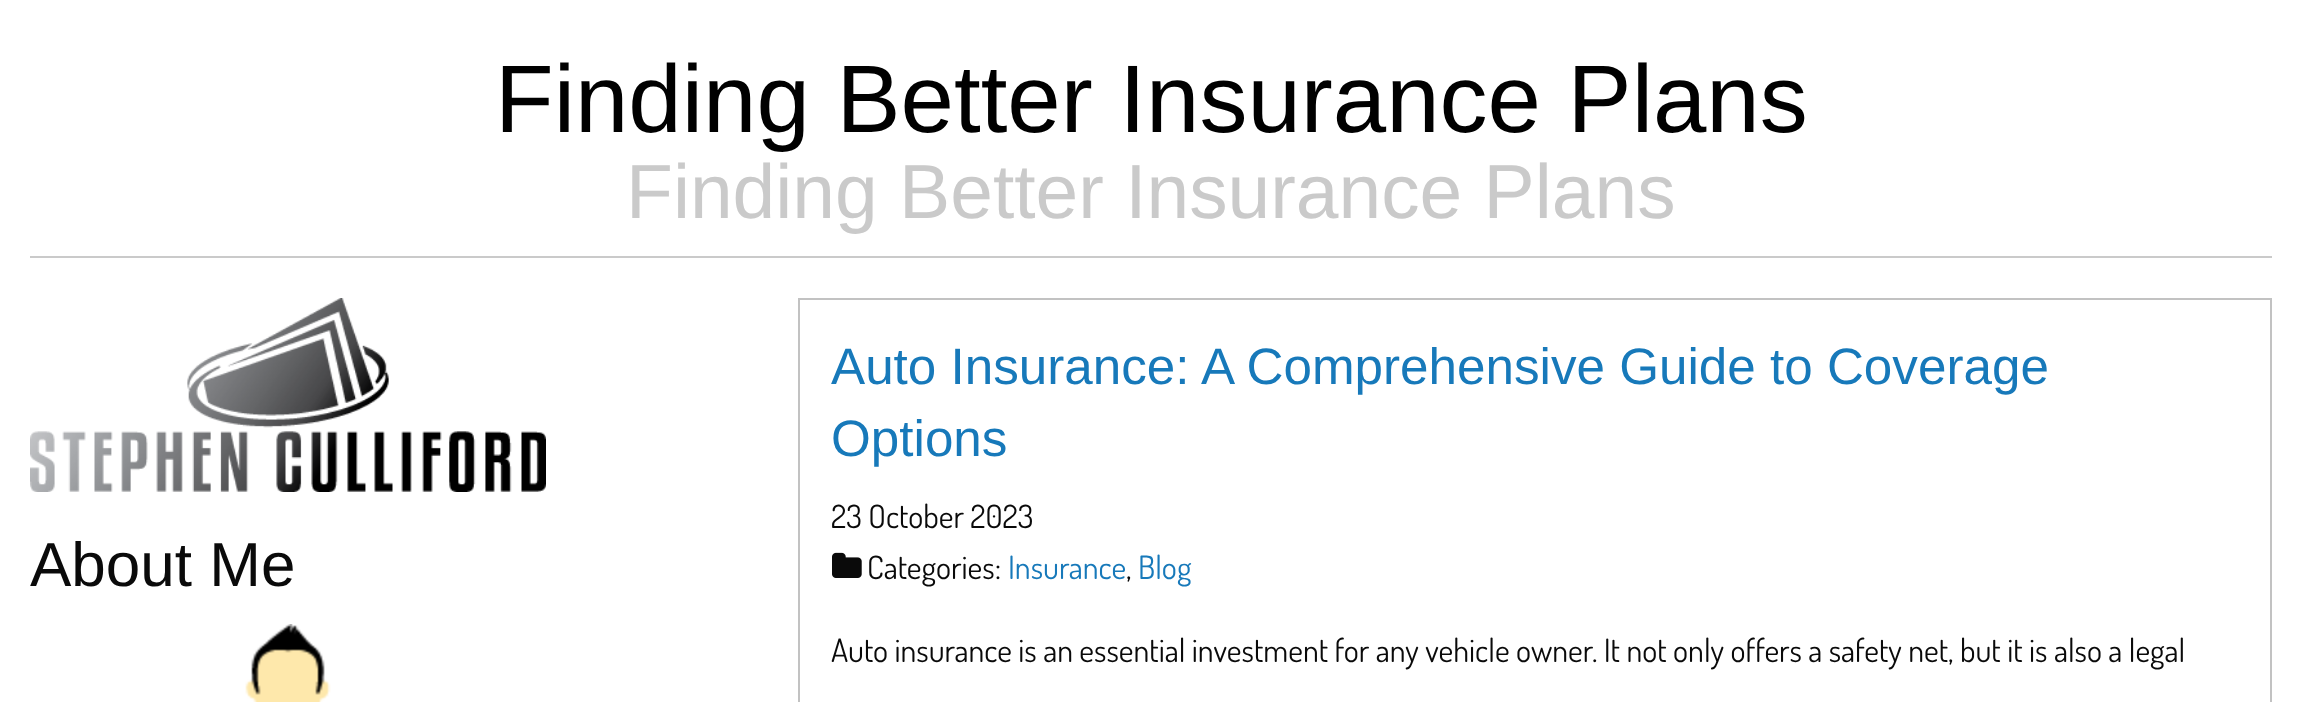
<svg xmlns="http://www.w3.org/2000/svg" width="2302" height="702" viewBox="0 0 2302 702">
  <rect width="100%" height="100%" fill="rgb(255,255,255)"/>
  <text x="495" y="132" font-family="Liberation Sans" font-size="96" fill="rgb(0,0,0)">Finding Better Insurance Plans</text>
  <text x="626" y="218" font-family="Liberation Sans" font-size="76.75" fill="rgb(202,202,202)">Finding Better Insurance Plans</text>
  <rect x="30" y="256" width="2242" height="2" fill="rgb(202,202,202)"/>
  <image x="30" y="298" width="516" height="194" href="pic1.png"/>
  <text x="30" y="586" font-family="Liberation Sans" font-size="62" fill="rgb(10,10,10)">About Me</text>
  <image x="245" y="624" width="86" height="78" href="pic2.png"/>
  <rect x="799" y="299" width="1472" height="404" fill="none" stroke="rgb(194,194,194)" stroke-width="2"/>
  <g font-family="Liberation Sans" font-size="51.2" fill="rgb(23,121,186)">
    <text>
      <tspan x="831" y="384">Auto Insurance: A Comprehensive Guide to Coverage</tspan>
      <tspan x="831" y="456">Options</tspan>
    </text>
  </g>
  <text x="831" y="528" font-family="Dosis" font-size="32" fill="rgb(10,10,10)">23 October 2023</text>
  <image x="832" y="552" width="30" height="26" href="pic3.png"/>
  <text x="867" y="579" font-family="Dosis" font-size="32" fill="rgb(10,10,10)">Categories:</text>
  <text x="1008" y="579" font-family="Dosis" font-size="32" fill="rgb(23,121,186)">Insurance</text>
  <text x="1126" y="579" font-family="Dosis" font-size="32" fill="rgb(10,10,10)">,</text>
  <text x="1138" y="579" font-family="Dosis" font-size="32" fill="rgb(23,121,186)">Blog</text>
  <text x="831" y="662" font-family="Dosis" font-size="32" fill="rgb(10,10,10)">Auto insurance is an essential investment for any vehicle owner. It not only offers a safety net, but it is also a legal</text>
</svg>
